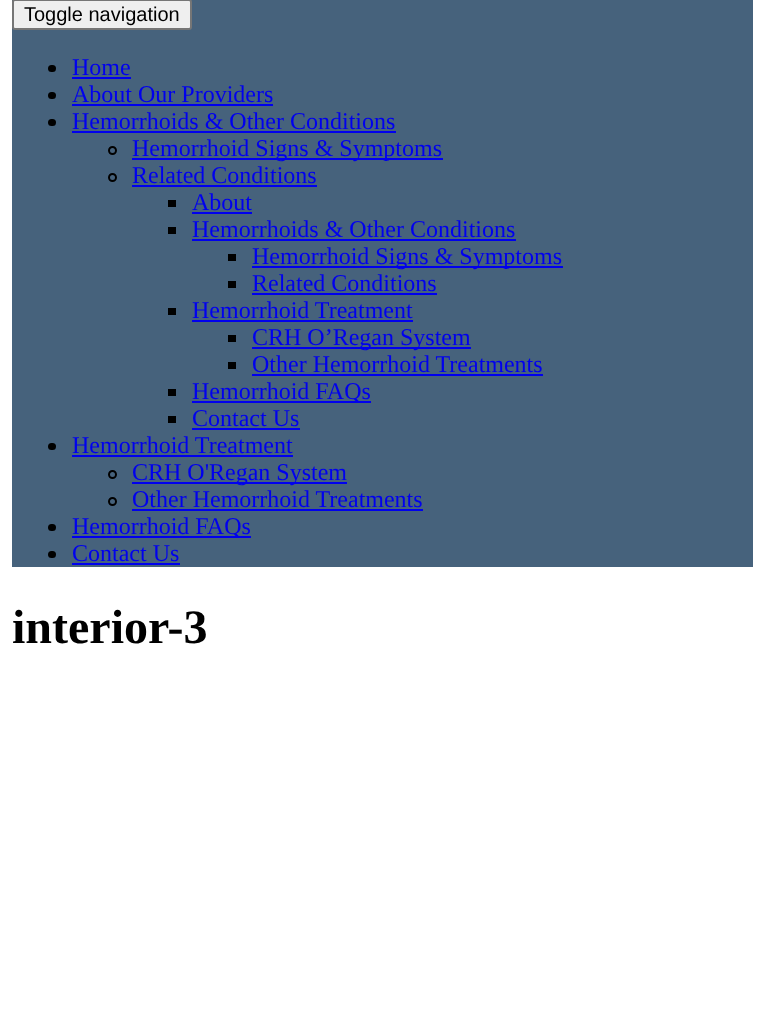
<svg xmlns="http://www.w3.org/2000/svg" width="765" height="1020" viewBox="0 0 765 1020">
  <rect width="100%" height="100%" fill="rgb(255,255,255)"/>
  <rect x="12" y="0" width="741" height="567" fill="rgb(70,98,124)"/>
  <rect x="13" y="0" width="178" height="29" rx="2" fill="rgb(239,239,239)" stroke="rgb(118,118,118)" stroke-width="2"/>
  <text x="24" y="21" font-family="Liberation Sans" font-size="20" fill="rgb(0,0,0)">Toggle navigation</text>
  <rect x="48" y="65" width="8" height="7" rx="3.5" fill="rgb(0,0,0)"/>
  <text x="72" y="75" font-family="Liberation Serif" font-size="24" fill="rgb(0,0,238)">Home</text>
  <rect x="72" y="77" width="59" height="2" fill="rgb(0,0,238)"/>
  <rect x="48" y="92" width="8" height="7" rx="3.5" fill="rgb(0,0,0)"/>
  <text x="72" y="102" font-family="Liberation Serif" font-size="24" fill="rgb(0,0,238)">About Our Providers</text>
  <rect x="72" y="104" width="201" height="2" fill="rgb(0,0,238)"/>
  <rect x="48" y="119" width="8" height="7" rx="3.5" fill="rgb(0,0,0)"/>
  <text x="72" y="129" font-family="Liberation Serif" font-size="24" fill="rgb(0,0,238)">Hemorrhoids &amp; Other Conditions</text>
  <rect x="72" y="131" width="324" height="2" fill="rgb(0,0,238)"/>
  <circle cx="112.5" cy="150.5" r="3.5" fill="none" stroke="rgb(0,0,0)" stroke-width="2"/>
  <rect x="132" y="158" width="311" height="2" fill="rgb(0,0,238)"/>
  <text x="132" y="156" font-family="Liberation Serif" font-size="24" fill="rgb(0,0,238)">Hemorrhoid Signs &amp; Symptoms</text>
  <circle cx="112.5" cy="177.5" r="3.5" fill="none" stroke="rgb(0,0,0)" stroke-width="2"/>
  <text x="132" y="183" font-family="Liberation Serif" font-size="24" fill="rgb(0,0,238)">Related Conditions</text>
  <rect x="132" y="185" width="185" height="2" fill="rgb(0,0,238)"/>
  <rect x="168" y="200" width="8" height="7" fill="rgb(0,0,0)"/>
  <text x="192" y="210" font-family="Liberation Serif" font-size="24" fill="rgb(0,0,238)">About</text>
  <rect x="192" y="212" width="60" height="2" fill="rgb(0,0,238)"/>
  <rect x="168" y="227" width="8" height="7" fill="rgb(0,0,0)"/>
  <text x="192" y="237" font-family="Liberation Serif" font-size="24" fill="rgb(0,0,238)">Hemorrhoids &amp; Other Conditions</text>
  <rect x="192" y="239" width="324" height="2" fill="rgb(0,0,238)"/>
  <rect x="228" y="254" width="8" height="7" fill="rgb(0,0,0)"/>
  <rect x="252" y="266" width="311" height="2" fill="rgb(0,0,238)"/>
  <text x="252" y="264" font-family="Liberation Serif" font-size="24" fill="rgb(0,0,238)">Hemorrhoid Signs &amp; Symptoms</text>
  <rect x="228" y="281" width="8" height="7" fill="rgb(0,0,0)"/>
  <text x="252" y="291" font-family="Liberation Serif" font-size="24" fill="rgb(0,0,238)">Related Conditions</text>
  <rect x="252" y="293" width="185" height="2" fill="rgb(0,0,238)"/>
  <rect x="168" y="308" width="8" height="7" fill="rgb(0,0,0)"/>
  <text x="192" y="318" font-family="Liberation Serif" font-size="24" fill="rgb(0,0,238)">Hemorrhoid Treatment</text>
  <rect x="192" y="320" width="221" height="2" fill="rgb(0,0,238)"/>
  <rect x="228" y="335" width="8" height="7" fill="rgb(0,0,0)"/>
  <rect x="252" y="347" width="219" height="2" fill="rgb(0,0,238)"/>
  <text x="252" y="345" font-family="Liberation Serif" font-size="24" fill="rgb(0,0,238)">CRH O’Regan System</text>
  <rect x="228" y="362" width="8" height="7" fill="rgb(0,0,0)"/>
  <text x="252" y="372" font-family="Liberation Serif" font-size="24" fill="rgb(0,0,238)">Other Hemorrhoid Treatments</text>
  <rect x="252" y="374" width="291" height="2" fill="rgb(0,0,238)"/>
  <rect x="168" y="389" width="8" height="7" fill="rgb(0,0,0)"/>
  <rect x="192" y="401" width="179" height="2" fill="rgb(0,0,238)"/>
  <text x="192" y="399" font-family="Liberation Serif" font-size="24" fill="rgb(0,0,238)">Hemorrhoid FAQs</text>
  <rect x="168" y="416" width="8" height="7" fill="rgb(0,0,0)"/>
  <text x="192" y="426" font-family="Liberation Serif" font-size="24" fill="rgb(0,0,238)">Contact Us</text>
  <rect x="192" y="428" width="108" height="2" fill="rgb(0,0,238)"/>
  <rect x="48" y="443" width="8" height="7" rx="3.5" fill="rgb(0,0,0)"/>
  <text x="72" y="453" font-family="Liberation Serif" font-size="24" fill="rgb(0,0,238)">Hemorrhoid Treatment</text>
  <rect x="72" y="455" width="221" height="2" fill="rgb(0,0,238)"/>
  <circle cx="112.5" cy="474.5" r="3.5" fill="none" stroke="rgb(0,0,0)" stroke-width="2"/>
  <rect x="132" y="482" width="215" height="2" fill="rgb(0,0,238)"/>
  <text x="132" y="480" font-family="Liberation Serif" font-size="24" fill="rgb(0,0,238)">CRH O'Regan System</text>
  <circle cx="112.5" cy="501.5" r="3.5" fill="none" stroke="rgb(0,0,0)" stroke-width="2"/>
  <text x="132" y="507" font-family="Liberation Serif" font-size="24" fill="rgb(0,0,238)">Other Hemorrhoid Treatments</text>
  <rect x="132" y="509" width="291" height="2" fill="rgb(0,0,238)"/>
  <rect x="48" y="524" width="8" height="7" rx="3.5" fill="rgb(0,0,0)"/>
  <rect x="72" y="536" width="179" height="2" fill="rgb(0,0,238)"/>
  <text x="72" y="534" font-family="Liberation Serif" font-size="24" fill="rgb(0,0,238)">Hemorrhoid FAQs</text>
  <rect x="48" y="551" width="8" height="7" rx="3.5" fill="rgb(0,0,0)"/>
  <text x="72" y="561" font-family="Liberation Serif" font-size="24" fill="rgb(0,0,238)">Contact Us</text>
  <rect x="72" y="563" width="108" height="2" fill="rgb(0,0,238)"/>
  <text x="12" y="643" font-family="Liberation Serif" font-size="48" font-weight="bold" fill="rgb(0,0,0)">interior-3</text>
</svg>
